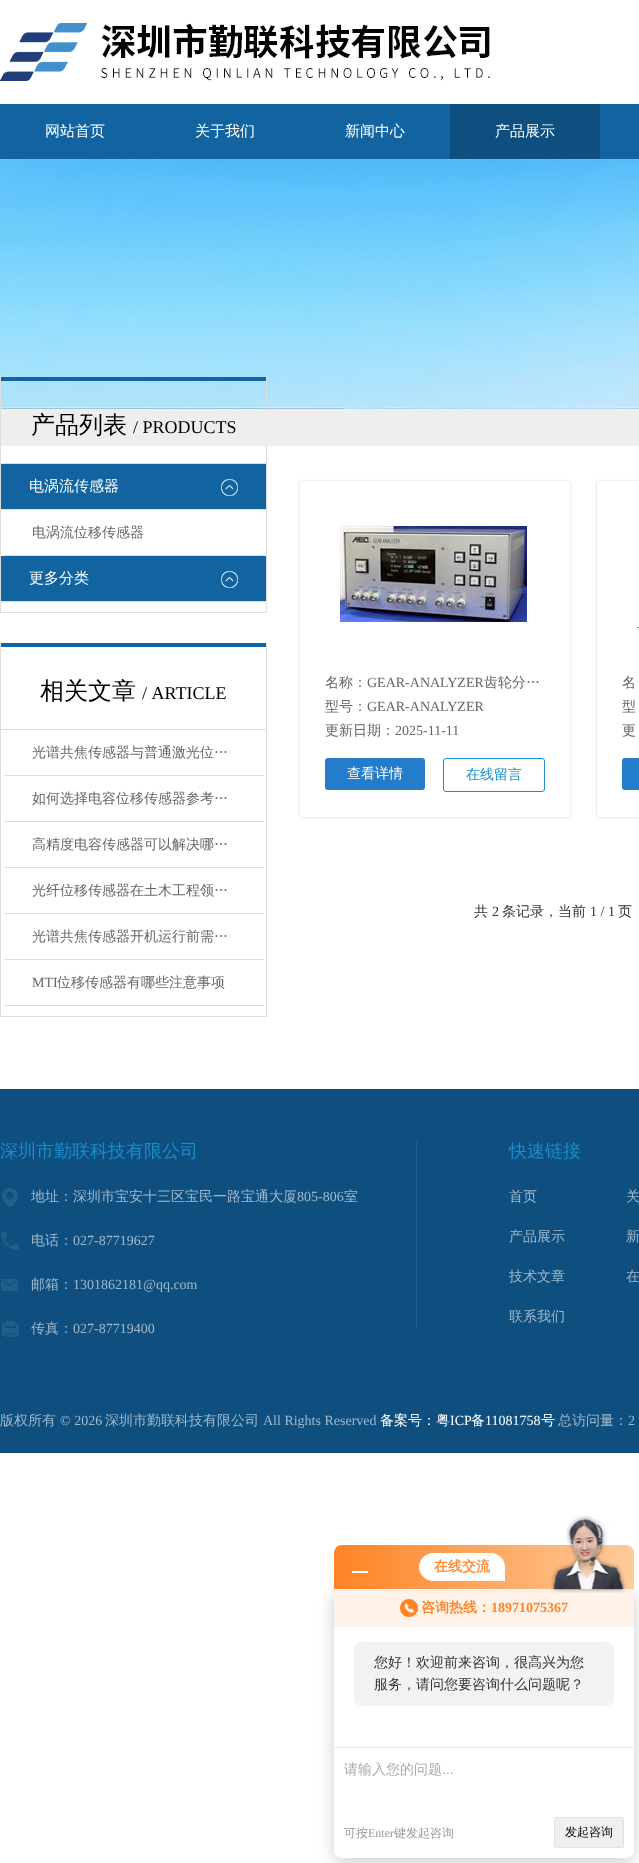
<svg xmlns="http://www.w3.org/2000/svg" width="639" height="1863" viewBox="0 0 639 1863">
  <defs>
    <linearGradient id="g1" gradientUnits="userSpaceOnUse" x1="334" y1="1567" x2="634" y2="1567"><stop offset="0" stop-color="rgb(255,131,36)"/><stop offset="1" stop-color="rgb(254,203,156)"/></linearGradient>
  </defs>
  <rect width="100%" height="100%" fill="rgb(255,255,255)"/>
  <rect x="1" y="409" width="264" height="37" fill="rgb(238,238,238)"/>
  <image x="0" y="23" width="490" height="58" href="pic1.png"/>
  <rect x="0" y="104" width="639" height="55" fill="rgb(18,100,160)"/>
  <g font-family="WenQuanYi Zen Hei" font-size="15" font-weight="500" fill="rgb(255,255,255)">
    <text x="45" y="136">网站首页</text>
    <text x="195" y="136">关于我们</text>
    <text x="345" y="136">新闻中心</text>
  </g>
  <rect x="450" y="104" width="150" height="55" fill="rgb(14,79,128)"/>
  <text x="495" y="136" font-family="WenQuanYi Zen Hei" font-size="15" font-weight="500" fill="rgb(255,255,255)">产品展示</text>
  <image x="0" y="159" width="639" height="250" href="pic2.png"/>
  <rect x="266" y="377" width="1" height="236" fill="rgb(221,221,221)"/>
  <rect x="0" y="612" width="267" height="1" fill="rgb(221,221,221)"/>
  <rect x="0" y="377" width="1" height="236" fill="rgb(221,221,221)"/>
  <rect x="1" y="377" width="265" height="4" fill="rgb(18,100,160)"/>
  <rect x="1" y="463" width="265" height="1" fill="rgb(221,221,221)"/>
  <text x="31" y="433" font-family="WenQuanYi Zen Hei" font-size="24" font-weight="500" fill="rgb(0,0,0)">产品列表</text>
  <text x="133" y="433" font-family="Liberation Serif" font-size="18" fill="rgb(0,0,0)">/ PRODUCTS</text>
  <rect x="1" y="464" width="265" height="45" fill="rgb(18,100,160)"/>
  <image x="221" y="479" width="17" height="17" href="pic3.png"/>
  <rect x="1" y="509" width="265" height="1" fill="rgb(221,221,221)"/>
  <text x="29" y="491" font-family="WenQuanYi Zen Hei" font-size="15" font-weight="500" fill="rgb(255,255,255)">电涡流传感器</text>
  <rect x="4" y="555" width="260" height="1" fill="rgb(221,221,221)"/>
  <text x="32" y="537" font-family="WenQuanYi Zen Hei" font-size="14" font-weight="500" fill="rgb(102,102,102)">电涡流位移传感器</text>
  <rect x="1" y="556" width="265" height="45" fill="rgb(18,100,160)"/>
  <image x="221" y="571" width="17" height="17" href="pic3.png"/>
  <rect x="1" y="601" width="265" height="1" fill="rgb(221,221,221)"/>
  <text x="29" y="583" font-family="WenQuanYi Zen Hei" font-size="15" font-weight="500" fill="rgb(255,255,255)">更多分类</text>
  <rect x="266" y="643" width="1" height="374" fill="rgb(221,221,221)"/>
  <rect x="0" y="1016" width="267" height="1" fill="rgb(221,221,221)"/>
  <rect x="0" y="643" width="1" height="374" fill="rgb(221,221,221)"/>
  <rect x="1" y="643" width="265" height="4" fill="rgb(18,100,160)"/>
  <rect x="1" y="729" width="265" height="1" fill="rgb(221,221,221)"/>
  <text x="40" y="699" font-family="WenQuanYi Zen Hei" font-size="24" font-weight="500" fill="rgb(0,0,0)">相关文章</text>
  <text x="142" y="699" word-spacing="1" font-family="Liberation Serif" font-size="18" fill="rgb(0,0,0)">/ ARTICLE</text>
  <rect x="4" y="775" width="260" height="1" fill="rgb(221,221,221)"/>
  <text x="32" y="757" font-family="WenQuanYi Zen Hei" font-size="14" font-weight="500" fill="rgb(102,102,102)">光谱共焦传感器与普通激光位…</text>
  <rect x="4" y="821" width="260" height="1" fill="rgb(221,221,221)"/>
  <text x="32" y="803" font-family="WenQuanYi Zen Hei" font-size="14" font-weight="500" fill="rgb(102,102,102)">如何选择电容位移传感器参考…</text>
  <rect x="4" y="867" width="260" height="1" fill="rgb(221,221,221)"/>
  <text x="32" y="849" font-family="WenQuanYi Zen Hei" font-size="14" font-weight="500" fill="rgb(102,102,102)">高精度电容传感器可以解决哪…</text>
  <rect x="4" y="913" width="260" height="1" fill="rgb(221,221,221)"/>
  <text x="32" y="895" font-family="WenQuanYi Zen Hei" font-size="14" font-weight="500" fill="rgb(102,102,102)">光纤位移传感器在土木工程领…</text>
  <rect x="4" y="959" width="260" height="1" fill="rgb(221,221,221)"/>
  <text x="32" y="941" font-family="WenQuanYi Zen Hei" font-size="14" font-weight="500" fill="rgb(102,102,102)">光谱共焦传感器开机运行前需…</text>
  <rect x="4" y="1005" width="260" height="1" fill="rgb(221,221,221)"/>
  <text x="32" y="987" font-family="Liberation Serif" font-size="14" fill="rgb(102,102,102)">MTI</text>
  <text x="57" y="987" font-family="WenQuanYi Zen Hei" font-size="14" font-weight="500" fill="rgb(102,102,102)">位移传感器有哪些注意事项</text>
  <rect x="265" y="409" width="374" height="37" fill="rgb(238,238,238)"/>
  <rect x="300" y="481" width="270" height="336" rx="2" fill="rgb(204,204,204)" filter="blur(1px)"/>
  <rect x="300" y="481" width="270" height="336" rx="2" fill="rgb(255,255,255)"/>
  <image x="340" y="526" width="187" height="96" href="pic4.png"/>
  <text x="325" y="687" font-family="WenQuanYi Zen Hei" font-size="14" font-weight="500" fill="rgb(102,102,102)">名称：</text>
  <text x="367" y="687" font-family="Liberation Serif" font-size="14" fill="rgb(102,102,102)">GEAR-ANALYZER</text>
  <g font-family="WenQuanYi Zen Hei" font-size="14" font-weight="500" fill="rgb(102,102,102)">
    <text x="484" y="687">齿轮分…</text>
    <text x="325" y="711">型号：</text>
  </g>
  <text x="367" y="711" font-family="Liberation Serif" font-size="14" fill="rgb(102,102,102)">GEAR-ANALYZER</text>
  <text x="325" y="735" font-family="WenQuanYi Zen Hei" font-size="14" font-weight="500" fill="rgb(102,102,102)">更新日期：</text>
  <text x="395" y="735" font-family="Liberation Serif" font-size="14" fill="rgb(102,102,102)">2025-11-11</text>
  <rect x="325" y="758" width="100" height="32" rx="3" fill="rgb(36,125,202)"/>
  <text x="347" y="778" font-family="WenQuanYi Zen Hei" font-size="14" font-weight="500" fill="rgb(255,255,255)">查看详情</text>
  <rect x="443.5" y="758.5" width="101" height="33" rx="2.5" fill="none" stroke="rgb(23,142,202)"/>
  <text x="466" y="779" font-family="WenQuanYi Zen Hei" font-size="14" font-weight="500" fill="rgb(23,142,202)">在线留言</text>
  <rect x="597" y="481" width="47" height="336" rx="2" fill="rgb(204,204,204)" filter="blur(1px)"/>
  <rect x="597" y="481" width="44" height="336" rx="2" fill="rgb(255,255,255)"/>
  <image x="637" y="627" width="2" height="1" href="pic5.png"/>
  <g font-family="WenQuanYi Zen Hei" font-size="14" font-weight="500" fill="rgb(102,102,102)">
    <text>
      <tspan x="622" y="687">名</tspan>
      <tspan x="622" y="711">型</tspan>
      <tspan x="622" y="735">更</tspan>
    </text>
  </g>
  <rect x="622" y="758" width="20" height="32" rx="3" fill="rgb(36,125,202)"/>
  <text x="474" y="916" font-family="WenQuanYi Zen Hei" font-size="14" font-weight="500" fill="rgb(51,51,51)">共</text>
  <text x="492" y="916" font-family="Liberation Serif" font-size="14" fill="rgb(51,51,51)">2</text>
  <text x="502" y="916" font-family="WenQuanYi Zen Hei" font-size="14" font-weight="500" fill="rgb(51,51,51)">条记录，当前</text>
  <text x="590" y="916" font-family="Liberation Serif" font-size="14" fill="rgb(51,51,51)">1 / 1</text>
  <text x="618" y="916" font-family="WenQuanYi Zen Hei" font-size="14" font-weight="500" fill="rgb(51,51,51)">页</text>
  <rect x="0" y="1089" width="639" height="364" fill="rgb(14,79,128)"/>
  <text x="0" y="1157" font-family="WenQuanYi Zen Hei" font-size="18" font-weight="500" fill="rgb(23,142,202)">深圳市勤联科技有限公司</text>
  <image x="2" y="1188" width="16" height="19" href="pic6.png"/>
  <text x="31" y="1201" font-family="WenQuanYi Zen Hei" font-size="14" font-weight="500" fill="rgb(159,185,204)">地址：深圳市宝安十三区宝民一路宝通大厦</text>
  <text x="297" y="1201" font-family="Liberation Serif" font-size="14" fill="rgb(159,185,204)">805-806</text>
  <text x="344" y="1201" font-family="WenQuanYi Zen Hei" font-size="14" font-weight="500" fill="rgb(159,185,204)">室</text>
  <image x="1" y="1232" width="18" height="18" href="pic7.png"/>
  <text x="31" y="1245" font-family="WenQuanYi Zen Hei" font-size="14" font-weight="500" fill="rgb(159,185,204)">电话：</text>
  <text x="73" y="1245" font-family="Liberation Serif" font-size="14" fill="rgb(159,185,204)">027-87719627</text>
  <image x="1" y="1279" width="17" height="12" href="pic8.png"/>
  <text x="31" y="1289" font-family="WenQuanYi Zen Hei" font-size="14" font-weight="500" fill="rgb(159,185,204)">邮箱：</text>
  <text x="73" y="1289" font-family="Liberation Serif" font-size="14" fill="rgb(159,185,204)">1301862181@qq.com</text>
  <image x="2" y="1321" width="17" height="16" href="pic9.png"/>
  <text x="31" y="1333" font-family="WenQuanYi Zen Hei" font-size="14" font-weight="500" fill="rgb(159,185,204)">传真：</text>
  <text x="73" y="1333" font-family="Liberation Serif" font-size="14" fill="rgb(159,185,204)">027-87719400</text>
  <rect x="416" y="1141" width="1" height="188" fill="rgb(38,97,141)"/>
  <text x="509" y="1157" font-family="WenQuanYi Zen Hei" font-size="18" font-weight="500" fill="rgb(23,142,202)">快速链接</text>
  <g font-family="WenQuanYi Zen Hei" font-size="14" font-weight="500" fill="rgb(159,185,204)">
    <text x="509" y="1201">首页</text>
    <text x="626" y="1201">关</text>
    <text x="509" y="1241">产品展示</text>
    <text x="626" y="1241">新</text>
    <text x="509" y="1281">技术文章</text>
    <text x="626" y="1281">在</text>
    <text x="509" y="1321">联系我们</text>
    <text x="0" y="1425">版权所有</text>
  </g>
  <text x="60" y="1425" font-family="Liberation Serif" font-size="14" fill="rgb(159,185,204)">© 2026</text>
  <text x="105" y="1425" font-family="WenQuanYi Zen Hei" font-size="14" font-weight="500" fill="rgb(159,185,204)">深圳市勤联科技有限公司</text>
  <text x="263" y="1425" font-family="Liberation Serif" font-size="14" fill="rgb(159,185,204)">All Rights Reserved</text>
  <text x="380" y="1425" font-family="WenQuanYi Zen Hei" font-size="14" font-weight="500" fill="rgb(255,255,255)">备案号：粤</text>
  <text x="450" y="1425" font-family="Liberation Serif" font-size="14" fill="rgb(255,255,255)">ICP</text>
  <text x="471" y="1425" font-family="WenQuanYi Zen Hei" font-size="14" font-weight="500" fill="rgb(255,255,255)">备</text>
  <text x="485" y="1425" font-family="Liberation Serif" font-size="14" fill="rgb(255,255,255)">11081758</text>
  <text x="541" y="1425" font-family="WenQuanYi Zen Hei" font-size="14" font-weight="500" fill="rgb(255,255,255)">号</text>
  <text x="558" y="1425" font-family="WenQuanYi Zen Hei" font-size="14" font-weight="500" fill="rgb(159,185,204)">总访问量：</text>
  <text x="628" y="1425" font-family="Liberation Serif" font-size="14" fill="rgb(159,185,204)">2</text>
  <rect x="334" y="1593" width="300" height="269" rx="8" fill="rgba(0,0,0,0.2)" filter="blur(8px)"/>
  <path d="M342 1545H626C630.5 1545 634 1548.5 634 1553V1589H334V1553C334 1548.5 337.5 1545 342 1545Z" fill="url(#g1)"/>
  <rect x="352" y="1571" width="16" height="2" fill="rgb(255,255,255)"/>
  <path d="M433 1553H491C498.5 1553 505 1559.5 505 1567V1581H433C425.5 1581 419 1574.5 419 1567C419 1559.5 425.5 1553 433 1553Z" fill="rgb(255,255,255)"/>
  <text x="434" y="1571" font-family="WenQuanYi Zen Hei" font-size="14" font-weight="bold" fill="rgb(251,139,54)">在线交流</text>
  <path d="M334 1589H634V1850C634 1854.5 630.5 1858 626 1858H342C337.5 1858 334 1854.5 334 1850Z" fill="rgb(255,255,255)"/>
  <rect x="334" y="1589" width="300" height="38" fill="rgb(255,243,233)"/>
  <image x="550" y="1515" width="76" height="78" href="pic10.png"/>
  <image x="400" y="1599" width="18" height="18" href="pic11.png"/>
  <text x="421" y="1612" font-family="WenQuanYi Zen Hei" font-size="14" font-weight="bold" fill="rgb(255,132,38)">咨询热线：</text>
  <text x="491" y="1612" font-family="Liberation Serif" font-size="14" font-weight="bold" fill="rgb(255,132,38)">18971075367</text>
  <rect x="354" y="1642" width="260" height="64" rx="8" fill="rgb(242,242,242)"/>
  <g font-family="WenQuanYi Zen Hei" font-size="14" font-weight="500" fill="rgb(51,51,51)">
    <text>
      <tspan x="374" y="1667">您好！欢迎前来咨询，很高兴为您</tspan>
      <tspan x="374" y="1689">服务，请问您要咨询什么问题呢？</tspan>
    </text>
  </g>
  <rect x="334" y="1747" width="300" height="1" fill="rgb(234,234,234)"/>
  <text x="344" y="1774" font-family="WenQuanYi Zen Hei" font-size="14" font-weight="500" fill="rgb(170,170,170)">请输入您的问题</text>
  <text x="442" y="1774" font-family="Liberation Sans" font-size="14" fill="rgb(170,170,170)">...</text>
  <text x="344" y="1837" font-family="WenQuanYi Zen Hei" font-size="12" font-weight="500" fill="rgb(153,153,153)">可按</text>
  <text x="368" y="1837" font-family="Liberation Serif" font-size="12" fill="rgb(153,153,153)">Enter</text>
  <text x="394" y="1837" font-family="WenQuanYi Zen Hei" font-size="12" font-weight="500" fill="rgb(153,153,153)">键发起咨询</text>
  <rect x="554.5" y="1817.5" width="69" height="30" rx="1.5" fill="rgb(240,239,237)" stroke="rgb(226,226,226)"/>
  <text x="565" y="1836" font-family="WenQuanYi Zen Hei" font-size="12" font-weight="500" fill="rgb(0,0,0)">发起咨询</text>
</svg>
